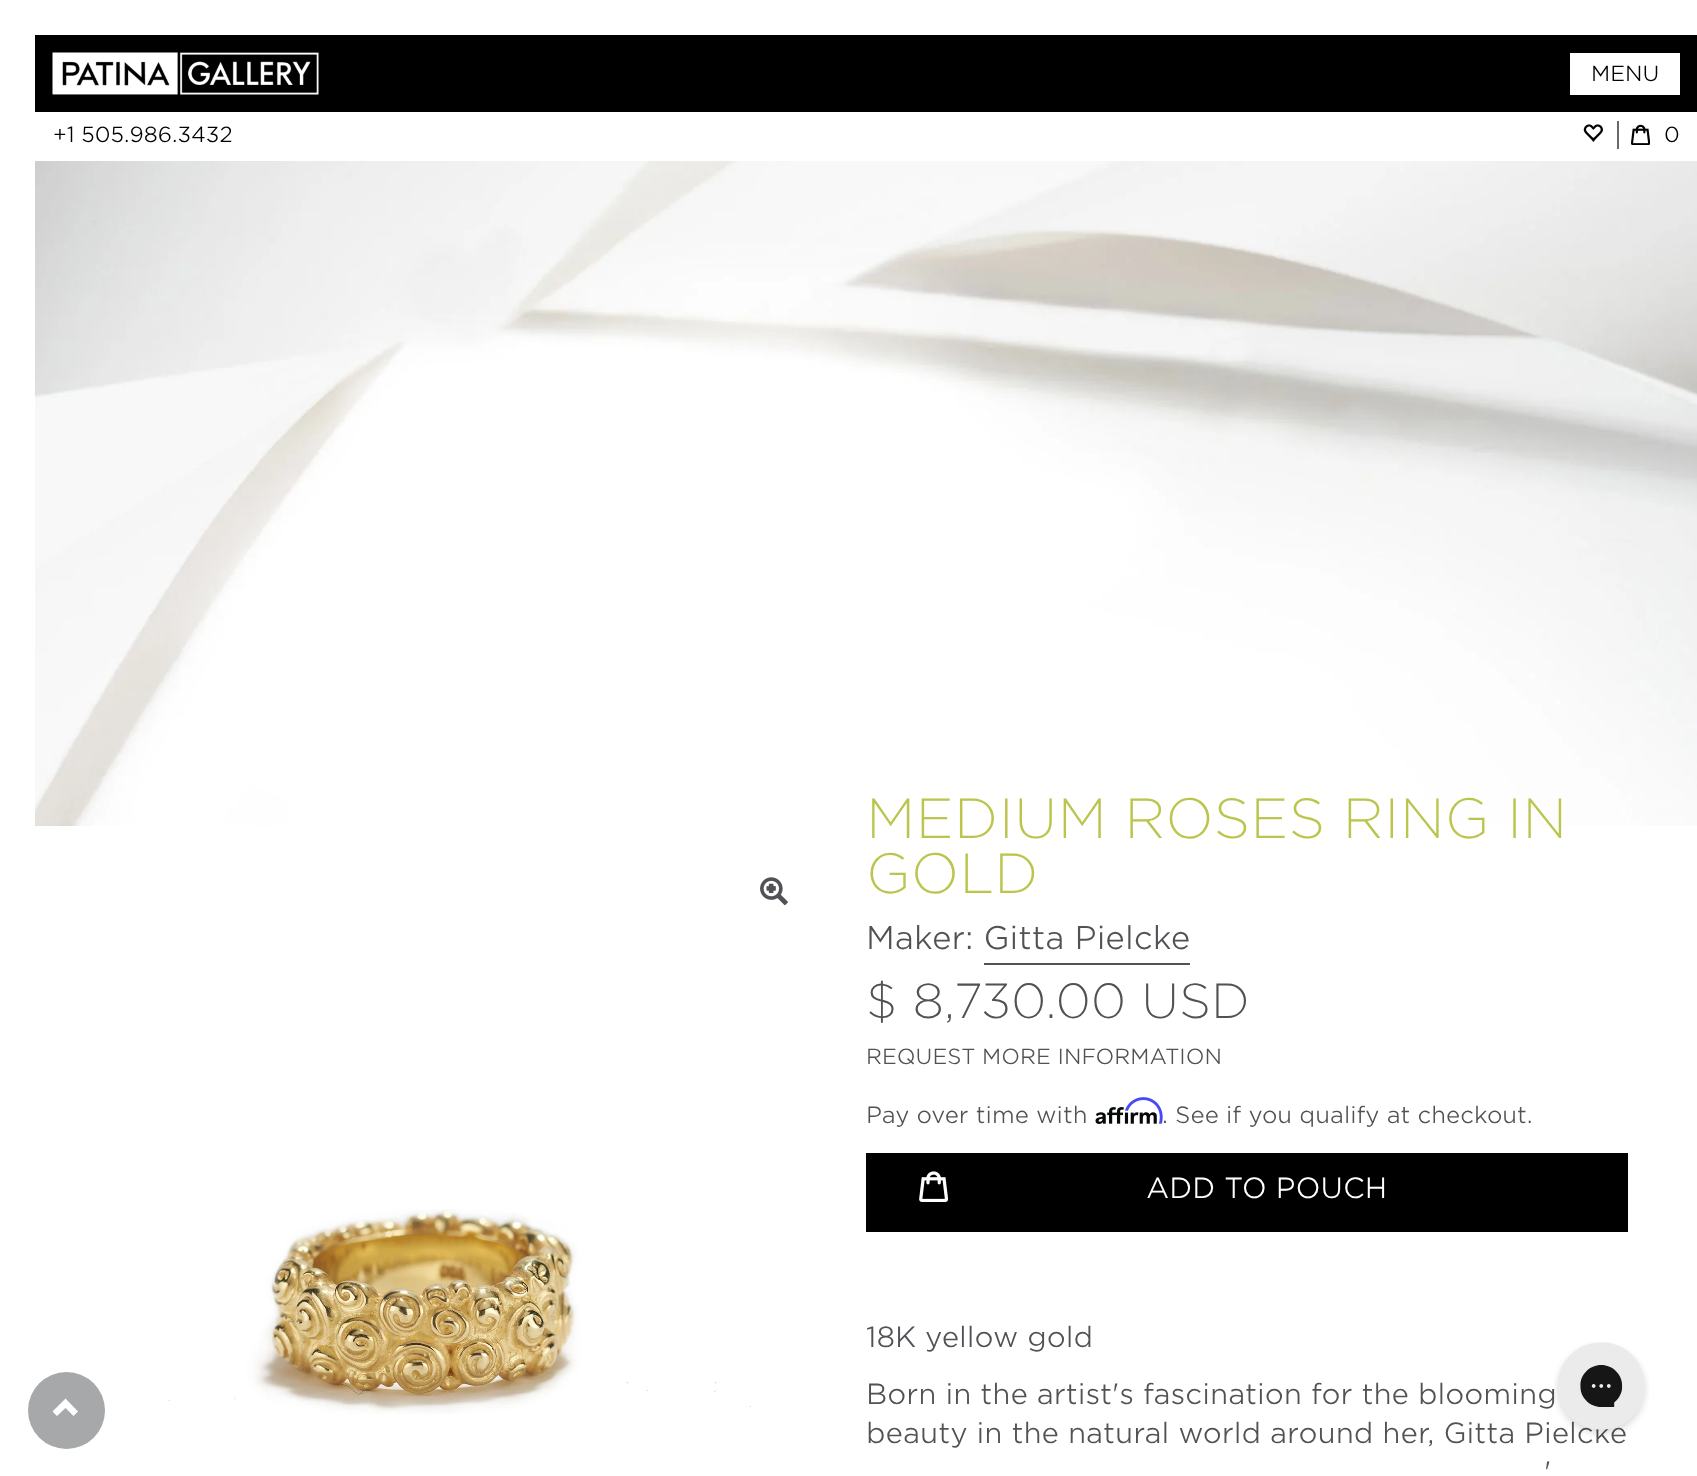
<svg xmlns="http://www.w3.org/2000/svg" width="1697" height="1476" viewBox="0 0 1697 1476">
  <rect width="100%" height="100%" fill="rgb(255,255,255)"/>
  <image x="35" y="161" width="1662" height="665" href="pic1.png"/>
  <rect x="35" y="35" width="1662" height="77" fill="rgb(0,0,0)"/>
  <image x="52" y="52" width="267" height="43" href="pic2.png"/>
  <rect x="1570" y="53" width="110" height="42" fill="rgb(255,255,255)"/>
  <g font-family="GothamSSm" font-size="21" font-weight="300" fill="rgb(0,0,0)">
    <text x="1591" y="81">MENU</text>
    <text x="53" y="142">+1 505.986.3432</text>
  </g>
  <rect x="1617" y="121" width="2" height="28" fill="rgb(105,105,105)"/>
  <image x="1583" y="124" width="20" height="18" href="pic3.png"/>
  <image x="1631" y="124" width="19" height="21" href="pic4.png"/>
  <text x="1664" y="142" font-family="GothamSSm" font-size="21" font-weight="300" fill="rgb(0,0,0)">0</text>
  <image x="760" y="877" width="28" height="29" href="pic5.png"/>
  <image x="168" y="1209" width="583" height="205" href="pic6.png"/>
  <g font-family="'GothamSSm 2'" font-size="54.25" font-weight="300" fill="rgb(187,197,77)">
    <text>
      <tspan x="866" y="838">MEDIUM ROSES RING IN</tspan>
      <tspan x="866" y="893">GOLD</tspan>
    </text>
  </g>
  <text x="866" y="949" font-family="GothamSSm" font-size="31.5" font-weight="300" fill="rgb(81,82,85)">Maker: Gitta Pielcke</text>
  <rect x="984" y="963" width="206" height="2" fill="rgb(81,82,85)"/>
  <text x="866" y="1018" font-family="'GothamSSm 2'" font-size="47.25" font-weight="300" fill="rgb(81,82,85)">$ 8,730.00 USD</text>
  <text x="866" y="1064" font-family="GothamSSm" font-size="21" font-weight="300" fill="rgb(81,82,85)">REQUEST MORE INFORMATION</text>
  <text x="866" y="1123" font-family="GothamSSm" font-size="22.75" font-weight="300" fill="rgb(81,82,85)">Pay over time with</text>
  <image x="1095" y="1107" width="62" height="17" href="pic8.png"/>
  <image x="1125" y="1097" width="38" height="27" href="pic7.png"/>
  <text x="1162" y="1123" font-family="GothamSSm" font-size="22.75" font-weight="300" fill="rgb(81,82,85)">. See if you qualify at checkout.</text>
  <rect x="866" y="1153" width="762" height="79" fill="rgb(0,0,0)"/>
  <image x="919" y="1171" width="30" height="31" href="pic9.png"/>
  <text x="1146" y="1198" font-family="GothamSSm" font-size="28" font-weight="300" fill="rgb(255,255,255)">ADD TO POUCH</text>
  <g font-family="GothamSSm" font-size="28" font-weight="300" fill="rgb(81,82,85)">
    <text x="866" y="1347">18K yellow gold</text>
    <text>
      <tspan x="866" y="1404">Born in the artist's fascination for the blooming</tspan>
      <tspan x="866" y="1443">beauty in the natural world around her, Gitta Pielcke</tspan>
    </text>
    <text x="1544" y="1482">'</text>
  </g>
  <circle cx="66.5" cy="1410.5" r="38.5" fill="rgb(167,168,169)"/>
  <path d="M78 1411.5L73.5 1416L65.5 1408L57 1416L52.5 1411.5L65.5 1398.5Z" fill="rgb(255,255,255)"/>
  <image x="1554" y="1342" width="95" height="95" href="pic10.png"/>
</svg>
